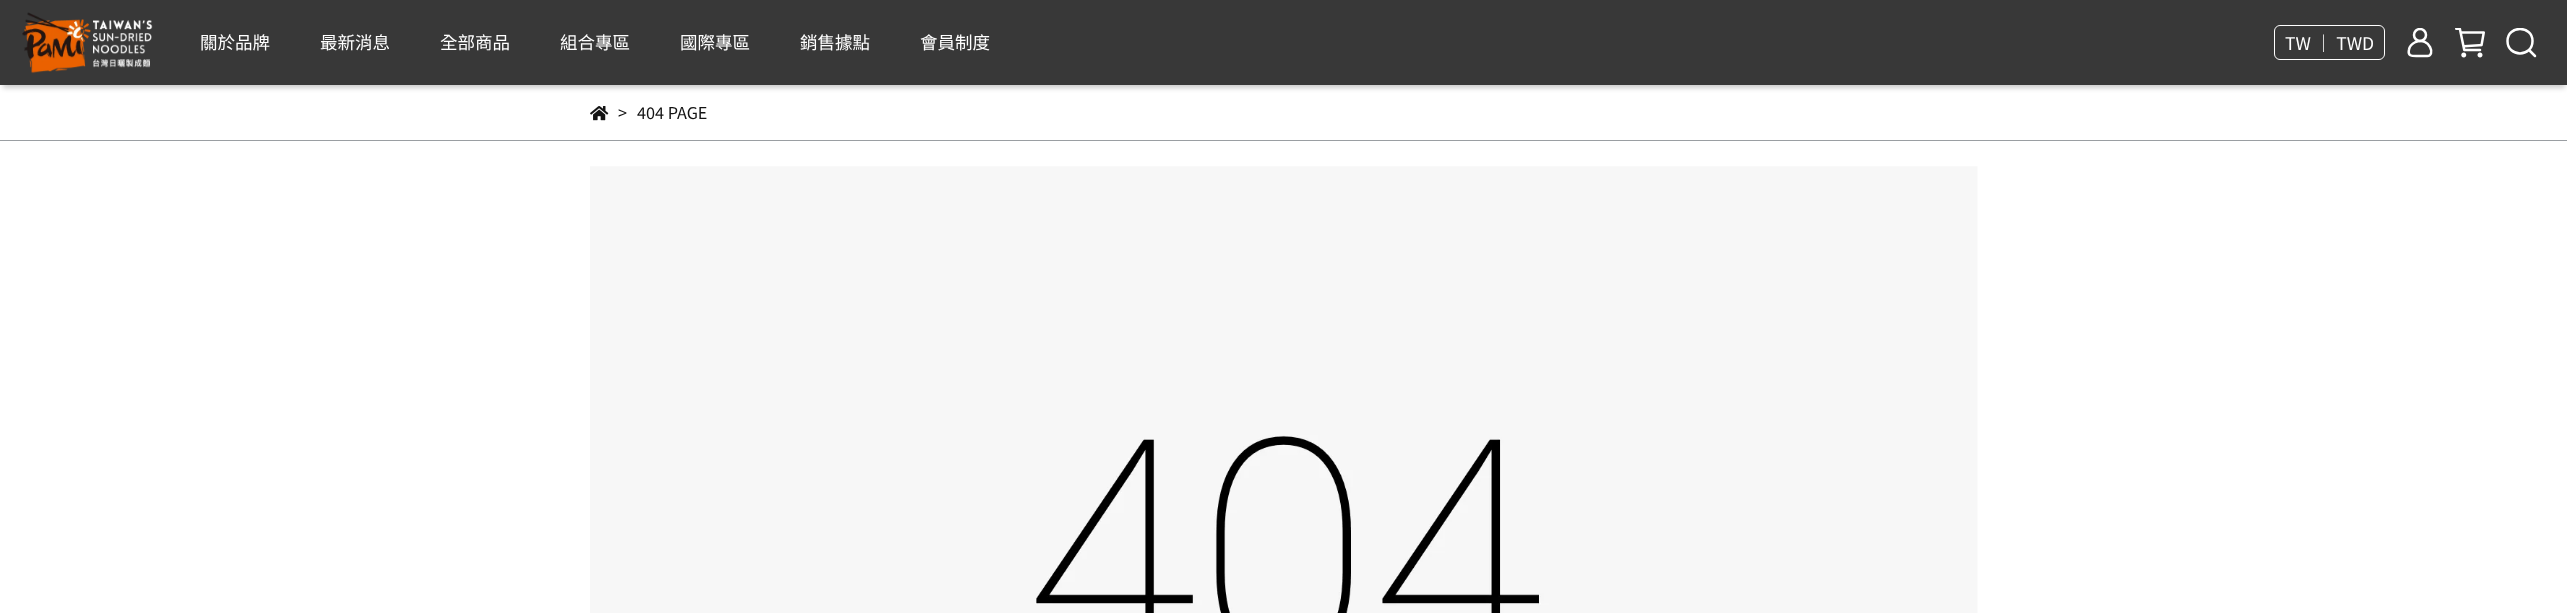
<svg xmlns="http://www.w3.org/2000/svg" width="2567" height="613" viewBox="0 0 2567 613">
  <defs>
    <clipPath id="clip1"><rect x="2405" y="28" width="30" height="30"/></clipPath>
    <clipPath id="clip2"><rect x="2505" y="28" width="33" height="30"/></clipPath>
  </defs>
  <rect width="100%" height="100%" fill="rgb(255,255,255)"/>
  <rect x="3" y="8" width="2562" height="80" fill="rgba(0,0,0,0.2)" filter="blur(2.5px)"/>
  <rect x="0" y="0" width="2567" height="85" fill="rgb(56,56,56)"/>
  <image x="22" y="12" width="131" height="62" href="pic1.png"/>
  <g font-family="Noto Sans TC" font-size="17.5" fill="rgb(255,255,255)">
    <text x="200" y="49">關於品牌</text>
    <text x="320" y="49">最新消息</text>
    <text x="440" y="49">全部商品</text>
    <text x="560" y="49">組合專區</text>
    <text x="680" y="49">國際專區</text>
    <text x="800" y="49">銷售據點</text>
    <text x="920" y="49">會員制度</text>
  </g>
  <rect x="2274.5" y="25.5" width="110" height="34" rx="5.5" fill="none" stroke="rgb(255,255,255)"/>
  <text x="2285" y="50" font-family="Noto Sans TC" font-size="17.5" fill="rgb(255,255,255)">TW ｜ TWD</text>
  <g clip-path="url(#clip1)">
    <circle cx="2420" cy="35" r="6" fill="none" stroke="rgb(255,255,255)" stroke-width="2.5"/>
  </g>
  <path d="M2427 56H2417.5C2412 56 2407.5 56.5 2409 49.5C2409.5 46 2412.5 43.5 2415.5 42C2430 36.5 2436 56.5 2427 56Z" fill="none" stroke="rgb(255,255,255)" stroke-width="2.5"/>
  <image x="2455" y="28" width="30" height="30" href="pic2.png"/>
  <g clip-path="url(#clip2)">
    <path d="M2532.5 41C2532.5 57.5 2507.5 57.5 2507.5 41C2507.5 25 2532.5 25 2532.5 41Z" fill="none" stroke="rgb(255,255,255)" stroke-width="2.5" stroke-linecap="round" stroke-linejoin="round"/>
  </g>
  <path d="M2530 51L2535 56" fill="none" stroke="rgb(255,255,255)" stroke-width="2.5" stroke-linecap="round" stroke-linejoin="round"/>
  <rect x="0" y="140" width="2567" height="1" fill="rgb(154,158,162)"/>
  <image x="590" y="106" width="19" height="15" href="pic3.png"/>
  <g font-family="Noto Sans TC" font-size="16.25" fill="rgb(19,19,19)">
    <text x="618" y="119">&gt;</text>
    <text x="637" y="119">404 PAGE</text>
  </g>
  <image x="590" y="166" width="1388" height="447" href="pic4.png"/>
</svg>
